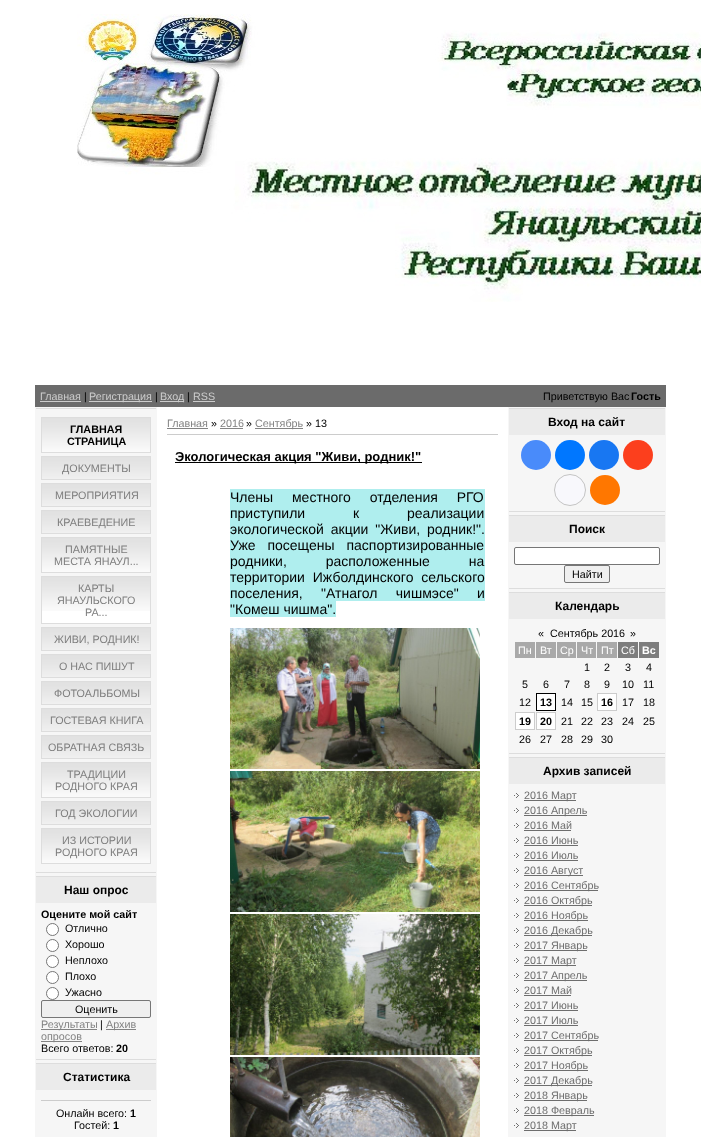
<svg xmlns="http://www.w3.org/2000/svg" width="701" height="1137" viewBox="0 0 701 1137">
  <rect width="100%" height="100%" fill="rgb(255,255,255)"/>
  <image x="77" y="14" width="624" height="288" href="pic1.png"/>
  <rect x="35" y="385" width="631" height="22" fill="rgb(107,107,107)"/>
  <text x="40" y="400" font-family="Liberation Sans" font-size="10.75" fill="rgb(204,204,204)">Главная</text>
  <rect x="40" y="401" width="41" height="1" fill="rgb(204,204,204)"/>
  <text x="84" y="400" font-family="Liberation Sans" font-size="10.75" fill="rgb(0,0,0)">|</text>
  <rect x="89" y="401" width="63" height="1" fill="rgb(204,204,204)"/>
  <text x="89" y="400" font-family="Liberation Sans" font-size="10.75" fill="rgb(204,204,204)">Регистрация</text>
  <text x="155" y="400" font-family="Liberation Sans" font-size="10.75" fill="rgb(0,0,0)">|</text>
  <rect x="160" y="401" width="24" height="1" fill="rgb(204,204,204)"/>
  <text x="160" y="400" font-family="Liberation Sans" font-size="10.75" fill="rgb(204,204,204)">Вход</text>
  <text x="187" y="400" font-family="Liberation Sans" font-size="10.75" fill="rgb(0,0,0)">|</text>
  <text x="193" y="400" font-family="Liberation Sans" font-size="10.75" fill="rgb(204,204,204)">RSS</text>
  <rect x="193" y="401" width="22" height="1" fill="rgb(204,204,204)"/>
  <text x="543" y="400" font-family="Liberation Sans" font-size="10.75" fill="rgb(0,0,0)">Приветствую Вас</text>
  <text x="631" y="400" font-family="Liberation Sans" font-size="10.75" font-weight="bold" fill="rgb(0,0,0)">Гость</text>
  <rect x="35" y="407" width="122" height="730" fill="rgb(246,246,246)"/>
  <rect x="36" y="408" width="120" height="1" fill="rgb(221,221,221)"/>
  <rect x="36" y="872" width="120" height="1" fill="rgb(221,221,221)"/>
  <image x="42" y="418" width="108" height="34" href="pic2.png"/>
  <rect x="41.5" y="417.5" width="109" height="35" fill="none" stroke="rgb(221,221,221)"/>
  <g font-family="Liberation Sans" font-size="10.75" font-weight="bold" fill="rgb(0,0,0)">
    <text x="70" y="433">ГЛАВНАЯ</text>
    <text x="67" y="445">СТРАНИЦА</text>
  </g>
  <image x="42" y="457" width="108" height="22" href="pic3.png"/>
  <rect x="41.5" y="456.5" width="109" height="23" fill="none" stroke="rgb(221,221,221)"/>
  <text x="62" y="472" font-family="Liberation Sans" font-size="10.75" fill="rgb(125,125,125)">ДОКУМЕНТЫ</text>
  <image x="42" y="484" width="108" height="22" href="pic3.png"/>
  <rect x="41.5" y="483.5" width="109" height="23" fill="none" stroke="rgb(221,221,221)"/>
  <text x="55" y="499" font-family="Liberation Sans" font-size="10.75" fill="rgb(125,125,125)">МЕРОПРИЯТИЯ</text>
  <image x="42" y="511" width="108" height="22" href="pic3.png"/>
  <rect x="41.5" y="510.5" width="109" height="23" fill="none" stroke="rgb(221,221,221)"/>
  <text x="57" y="526" font-family="Liberation Sans" font-size="10.75" fill="rgb(125,125,125)">КРАЕВЕДЕНИЕ</text>
  <image x="42" y="538" width="108" height="34" href="pic2.png"/>
  <rect x="41.5" y="537.5" width="109" height="35" fill="none" stroke="rgb(221,221,221)"/>
  <g font-family="Liberation Sans" font-size="10.75" fill="rgb(125,125,125)">
    <text x="65" y="553">ПАМЯТНЫЕ</text>
    <text x="54" y="565">МЕСТА ЯНАУЛ...</text>
  </g>
  <rect x="42" y="611" width="108" height="12" fill="rgb(255,255,255)"/>
  <image x="42" y="577" width="108" height="34" href="pic2.png"/>
  <rect x="41.5" y="576.5" width="109" height="47" fill="none" stroke="rgb(221,221,221)"/>
  <g font-family="Liberation Sans" font-size="10.75" fill="rgb(125,125,125)">
    <text x="78" y="592">КАРТЫ</text>
    <text x="57" y="604">ЯНАУЛЬСКОГО</text>
    <text x="85" y="616">РА...</text>
  </g>
  <image x="42" y="628" width="108" height="22" href="pic3.png"/>
  <rect x="41.5" y="627.5" width="109" height="23" fill="none" stroke="rgb(221,221,221)"/>
  <text x="54" y="643" font-family="Liberation Sans" font-size="10.75" fill="rgb(125,125,125)">ЖИВИ, РОДНИК!</text>
  <image x="42" y="655" width="108" height="22" href="pic3.png"/>
  <rect x="41.5" y="654.5" width="109" height="23" fill="none" stroke="rgb(221,221,221)"/>
  <text x="59" y="670" font-family="Liberation Sans" font-size="10.75" fill="rgb(125,125,125)">О НАС ПИШУТ</text>
  <image x="42" y="682" width="108" height="22" href="pic3.png"/>
  <rect x="41.5" y="681.5" width="109" height="23" fill="none" stroke="rgb(221,221,221)"/>
  <text x="54" y="697" font-family="Liberation Sans" font-size="10.75" fill="rgb(125,125,125)">ФОТОАЛЬБОМЫ</text>
  <image x="42" y="709" width="108" height="22" href="pic3.png"/>
  <rect x="41.5" y="708.5" width="109" height="23" fill="none" stroke="rgb(221,221,221)"/>
  <text x="50" y="724" font-family="Liberation Sans" font-size="10.75" fill="rgb(125,125,125)">ГОСТЕВАЯ КНИГА</text>
  <image x="42" y="736" width="108" height="22" href="pic3.png"/>
  <rect x="41.5" y="735.5" width="109" height="23" fill="none" stroke="rgb(221,221,221)"/>
  <text x="48" y="751" font-family="Liberation Sans" font-size="10.75" fill="rgb(125,125,125)">ОБРАТНАЯ СВЯЗЬ</text>
  <image x="42" y="763" width="108" height="34" href="pic2.png"/>
  <rect x="41.5" y="762.5" width="109" height="35" fill="none" stroke="rgb(221,221,221)"/>
  <g font-family="Liberation Sans" font-size="10.75" fill="rgb(125,125,125)">
    <text x="67" y="778">ТРАДИЦИИ</text>
    <text x="55" y="790">РОДНОГО КРАЯ</text>
  </g>
  <image x="42" y="802" width="108" height="22" href="pic3.png"/>
  <rect x="41.5" y="801.5" width="109" height="23" fill="none" stroke="rgb(221,221,221)"/>
  <text x="55" y="817" font-family="Liberation Sans" font-size="10.75" fill="rgb(125,125,125)">ГОД ЭКОЛОГИИ</text>
  <image x="42" y="829" width="108" height="34" href="pic2.png"/>
  <rect x="41.5" y="828.5" width="109" height="35" fill="none" stroke="rgb(221,221,221)"/>
  <g font-family="Liberation Sans" font-size="10.75" fill="rgb(125,125,125)">
    <text x="62" y="844">ИЗ ИСТОРИИ</text>
    <text x="55" y="856">РОДНОГО КРАЯ</text>
  </g>
  <rect x="36" y="876" width="120" height="1" fill="rgb(221,221,221)"/>
  <rect x="36" y="1059" width="120" height="1" fill="rgb(221,221,221)"/>
  <rect x="36" y="877" width="120" height="26" fill="rgb(235,235,235)"/>
  <text x="64" y="894" font-family="Liberation Sans" font-size="12" font-weight="bold" fill="rgb(0,0,0)">Наш опрос</text>
  <text x="41" y="918" font-family="Liberation Sans" font-size="10.75" font-weight="bold" fill="rgb(0,0,0)">Оцените мой сайт</text>
  <circle cx="52.5" cy="929.5" r="6" fill="rgb(255,255,255)" stroke="rgb(118,118,118)"/>
  <text x="65" y="932" font-family="Liberation Sans" font-size="10.75" fill="rgb(0,0,0)">Отлично</text>
  <circle cx="52.5" cy="945.5" r="6" fill="rgb(255,255,255)" stroke="rgb(118,118,118)"/>
  <text x="65" y="948" font-family="Liberation Sans" font-size="10.75" fill="rgb(0,0,0)">Хорошо</text>
  <circle cx="52.5" cy="961.5" r="6" fill="rgb(255,255,255)" stroke="rgb(118,118,118)"/>
  <text x="65" y="964" font-family="Liberation Sans" font-size="10.75" fill="rgb(0,0,0)">Неплохо</text>
  <circle cx="52.5" cy="977.5" r="6" fill="rgb(255,255,255)" stroke="rgb(118,118,118)"/>
  <text x="65" y="980" font-family="Liberation Sans" font-size="10.75" fill="rgb(0,0,0)">Плохо</text>
  <circle cx="52.5" cy="993.5" r="6" fill="rgb(255,255,255)" stroke="rgb(118,118,118)"/>
  <text x="65" y="996" font-family="Liberation Sans" font-size="10.75" fill="rgb(0,0,0)">Ужасно</text>
  <rect x="41.5" y="1000.5" width="109" height="17" rx="1.5" fill="rgb(239,239,239)" stroke="rgb(118,118,118)"/>
  <text x="75" y="1013" font-family="Liberation Sans" font-size="10.75" fill="rgb(0,0,0)">Оценить</text>
  <rect x="41" y="1029" width="56" height="1" fill="rgb(131,131,131)"/>
  <text x="41" y="1028" font-family="Liberation Sans" font-size="10.75" fill="rgb(131,131,131)">Результаты</text>
  <text x="100" y="1028" font-family="Liberation Sans" font-size="10.75" fill="rgb(0,0,0)">|</text>
  <rect x="106" y="1029" width="30" height="1" fill="rgb(131,131,131)"/>
  <text x="106" y="1028" font-family="Liberation Sans" font-size="10.75" fill="rgb(131,131,131)">Архив</text>
  <rect x="41" y="1041" width="41" height="1" fill="rgb(131,131,131)"/>
  <text x="41" y="1040" font-family="Liberation Sans" font-size="10.75" fill="rgb(131,131,131)">опросов</text>
  <text x="41" y="1052" font-family="Liberation Sans" font-size="10.75" fill="rgb(0,0,0)">Всего ответов:</text>
  <text x="116" y="1052" font-family="Liberation Sans" font-size="10.75" font-weight="bold" fill="rgb(0,0,0)">20</text>
  <rect x="36" y="1063" width="120" height="1" fill="rgb(221,221,221)"/>
  <rect x="36" y="1064" width="120" height="26" fill="rgb(235,235,235)"/>
  <text x="63" y="1081" font-family="Liberation Sans" font-size="12" font-weight="bold" fill="rgb(0,0,0)">Статистика</text>
  <rect x="41" y="1100" width="110" height="1" fill="rgb(204,204,204)"/>
  <text x="56" y="1117" font-family="Liberation Sans" font-size="10.75" fill="rgb(0,0,0)">Онлайн всего:</text>
  <text x="130" y="1117" font-family="Liberation Sans" font-size="10.75" font-weight="bold" fill="rgb(0,0,0)">1</text>
  <text x="74" y="1129" font-family="Liberation Sans" font-size="10.75" fill="rgb(0,0,0)">Гостей:</text>
  <text x="113" y="1129" font-family="Liberation Sans" font-size="10.75" font-weight="bold" fill="rgb(0,0,0)">1</text>
  <text x="167" y="427" font-family="Liberation Sans" font-size="10.75" fill="rgb(131,131,131)">Главная</text>
  <rect x="167" y="428" width="41" height="1" fill="rgb(131,131,131)"/>
  <text x="211" y="427" font-family="Liberation Sans" font-size="10.75" fill="rgb(0,0,0)">»</text>
  <text x="220" y="427" font-family="Liberation Sans" font-size="10.75" fill="rgb(131,131,131)">2016</text>
  <rect x="220" y="428" width="23" height="1" fill="rgb(131,131,131)"/>
  <text x="246" y="427" font-family="Liberation Sans" font-size="10.75" fill="rgb(0,0,0)">»</text>
  <rect x="255" y="428" width="48" height="1" fill="rgb(131,131,131)"/>
  <text x="255" y="427" font-family="Liberation Sans" font-size="10.75" fill="rgb(131,131,131)">Сентябрь</text>
  <text x="306" y="427" font-family="Liberation Sans" font-size="10.75" fill="rgb(0,0,0)">» 13</text>
  <rect x="167" y="434" width="331" height="1" fill="rgb(204,204,204)"/>
  <rect x="175" y="462" width="247" height="1" fill="rgb(0,0,0)"/>
  <text x="175" y="461" font-family="Liberation Sans" font-size="13" font-weight="bold" fill="rgb(0,0,0)">Экологическая акция "Живи, родник!"</text>
  <rect x="230" y="489" width="255" height="112" fill="rgb(175,238,238)"/>
  <g font-family="Liberation Sans" font-size="14" fill="rgb(0,0,0)">
    <text>
      <tspan x="230" y="502" word-spacing="15">Члены местного отделения РГО</tspan>
      <tspan x="230" y="518" word-spacing="44">приступили к реализации</tspan>
      <tspan x="230" y="534" word-spacing="3">экологической акции "Живи, родник!".</tspan>
      <tspan x="230" y="550" word-spacing="8">Уже посещены паспортизированные</tspan>
      <tspan x="230" y="566" word-spacing="35">родники, расположенные на</tspan>
      <tspan x="230" y="582" word-spacing="4">территории Ижболдинского сельского</tspan>
      <tspan x="230" y="598" word-spacing="14.5">поселения, "Атнагол чишмэсе" и</tspan>
    </text>
  </g>
  <rect x="230" y="601" width="106" height="16" fill="rgb(175,238,238)"/>
  <text x="230" y="614" font-family="Liberation Sans" font-size="14" fill="rgb(0,0,0)">"Комеш чишма".</text>
  <image x="230" y="628" width="250" height="141" href="pic4.png"/>
  <image x="230" y="771" width="250" height="141" href="pic5.png"/>
  <image x="230" y="914" width="250" height="141" href="pic6.png"/>
  <image x="230" y="1057" width="250" height="80" href="pic7.png"/>
  <rect x="508" y="407" width="158" height="730" fill="rgb(246,246,246)"/>
  <rect x="509" y="408" width="156" height="1" fill="rgb(221,221,221)"/>
  <rect x="509" y="511" width="156" height="1" fill="rgb(221,221,221)"/>
  <rect x="509" y="409" width="156" height="26" fill="rgb(235,235,235)"/>
  <text x="548" y="426" font-family="Liberation Sans" font-size="12" font-weight="bold" fill="rgb(0,0,0)">Вход на сайт</text>
  <circle cx="536" cy="455" r="15" fill="rgb(73,139,250)"/>
  <circle cx="570" cy="455" r="15" fill="rgb(0,119,255)"/>
  <circle cx="604" cy="455" r="15" fill="rgb(24,119,242)"/>
  <circle cx="638" cy="455" r="15" fill="rgb(252,63,29)"/>
  <circle cx="570" cy="490" r="15.5" fill="rgb(248,248,252)" stroke="rgb(196,196,196)"/>
  <circle cx="605" cy="490" r="15" fill="rgb(255,119,0)"/>
  <rect x="509" y="515" width="156" height="1" fill="rgb(221,221,221)"/>
  <rect x="509" y="588" width="156" height="1" fill="rgb(221,221,221)"/>
  <rect x="509" y="516" width="156" height="26" fill="rgb(235,235,235)"/>
  <text x="569" y="533" font-family="Liberation Sans" font-size="12" font-weight="bold" fill="rgb(0,0,0)">Поиск</text>
  <rect x="514.5" y="547.5" width="145" height="17" rx="1.5" fill="rgb(255,255,255)" stroke="rgb(118,118,118)"/>
  <rect x="564.5" y="565.5" width="45" height="17" rx="1.5" fill="rgb(239,239,239)" stroke="rgb(118,118,118)"/>
  <text x="572" y="578" font-family="Liberation Sans" font-size="10.75" fill="rgb(0,0,0)">Найти</text>
  <rect x="509" y="592" width="156" height="1" fill="rgb(221,221,221)"/>
  <rect x="509" y="753" width="156" height="1" fill="rgb(221,221,221)"/>
  <rect x="509" y="593" width="156" height="26" fill="rgb(235,235,235)"/>
  <text x="555" y="610" font-family="Liberation Sans" font-size="12" font-weight="bold" fill="rgb(0,0,0)">Календарь</text>
  <g font-family="Liberation Sans" font-size="10.75" fill="rgb(0,0,0)">
    <text x="538" y="637">«</text>
    <text x="550" y="637">Сентябрь 2016</text>
    <text x="630" y="637">»</text>
  </g>
  <rect x="515" y="642" width="20" height="16" fill="rgb(169,169,169)"/>
  <text x="518" y="654" font-family="Liberation Sans" font-size="10.75" fill="rgb(255,255,255)">Пн</text>
  <rect x="536" y="642" width="20" height="16" fill="rgb(169,169,169)"/>
  <text x="540" y="654" font-family="Liberation Sans" font-size="10.75" fill="rgb(255,255,255)">Вт</text>
  <rect x="557" y="642" width="19" height="16" fill="rgb(169,169,169)"/>
  <text x="560" y="654" font-family="Liberation Sans" font-size="10.75" fill="rgb(255,255,255)">Ср</text>
  <rect x="577" y="642" width="19" height="16" fill="rgb(169,169,169)"/>
  <text x="581" y="654" font-family="Liberation Sans" font-size="10.75" fill="rgb(255,255,255)">Чт</text>
  <rect x="597" y="642" width="20" height="16" fill="rgb(169,169,169)"/>
  <text x="601" y="654" font-family="Liberation Sans" font-size="10.75" fill="rgb(255,255,255)">Пт</text>
  <rect x="618" y="642" width="20" height="16" fill="rgb(125,125,125)"/>
  <text x="621" y="654" font-family="Liberation Sans" font-size="10.75" fill="rgb(255,255,255)">Сб</text>
  <rect x="639" y="642" width="20" height="16" fill="rgb(125,125,125)"/>
  <text x="642" y="654" font-family="Liberation Sans" font-size="10.75" font-weight="bold" fill="rgb(255,255,255)">Вс</text>
  <g font-family="Liberation Sans" font-size="10.75" fill="rgb(0,0,0)">
    <text x="584" y="671">1</text>
    <text x="604" y="671">2</text>
    <text x="625" y="671">3</text>
    <text x="646" y="671">4</text>
    <text x="522" y="688">5</text>
    <text x="543" y="688">6</text>
    <text x="564" y="688">7</text>
    <text x="584" y="688">8</text>
    <text x="604" y="688">9</text>
    <text x="622" y="688">10</text>
    <text x="643" y="688">11</text>
    <text x="519" y="706">12</text>
  </g>
  <rect x="536.5" y="693.5" width="19" height="17" fill="rgb(255,255,255)" stroke="rgb(0,0,0)"/>
  <text x="540" y="706" font-family="Liberation Sans" font-size="10.75" font-weight="bold" fill="rgb(0,0,0)">13</text>
  <g font-family="Liberation Sans" font-size="10.75" fill="rgb(0,0,0)">
    <text x="561" y="706">14</text>
    <text x="581" y="706">15</text>
  </g>
  <rect x="597.5" y="693.5" width="19" height="17" fill="rgb(255,255,255)" stroke="rgb(204,204,204)"/>
  <text x="601" y="706" font-family="Liberation Sans" font-size="10.75" font-weight="bold" fill="rgb(0,0,0)">16</text>
  <g font-family="Liberation Sans" font-size="10.75" fill="rgb(0,0,0)">
    <text x="622" y="706">17</text>
    <text x="643" y="706">18</text>
  </g>
  <rect x="515.5" y="712.5" width="19" height="17" fill="rgb(255,255,255)" stroke="rgb(204,204,204)"/>
  <text x="519" y="725" font-family="Liberation Sans" font-size="10.75" font-weight="bold" fill="rgb(0,0,0)">19</text>
  <rect x="536.5" y="712.5" width="19" height="17" fill="rgb(255,255,255)" stroke="rgb(204,204,204)"/>
  <text x="540" y="725" font-family="Liberation Sans" font-size="10.75" font-weight="bold" fill="rgb(0,0,0)">20</text>
  <g font-family="Liberation Sans" font-size="10.75" fill="rgb(0,0,0)">
    <text x="561" y="725">21</text>
    <text x="581" y="725">22</text>
    <text x="601" y="725">23</text>
    <text x="622" y="725">24</text>
    <text x="643" y="725">25</text>
    <text x="519" y="743">26</text>
    <text x="540" y="743">27</text>
    <text x="561" y="743">28</text>
    <text x="581" y="743">29</text>
    <text x="601" y="743">30</text>
  </g>
  <rect x="509" y="757" width="156" height="1" fill="rgb(221,221,221)"/>
  <rect x="509" y="758" width="156" height="26" fill="rgb(235,235,235)"/>
  <text x="543" y="775" font-family="Liberation Sans" font-size="12" font-weight="bold" fill="rgb(0,0,0)">Архив записей</text>
  <image x="514" y="793" width="5" height="5" href="pic8.png"/>
  <rect x="524" y="800" width="52" height="1" fill="rgb(110,110,110)"/>
  <text x="524" y="799" font-family="Liberation Sans" font-size="10.75" fill="rgb(110,110,110)">2016 Март</text>
  <image x="514" y="808" width="5" height="5" href="pic8.png"/>
  <rect x="524" y="815" width="63" height="1" fill="rgb(110,110,110)"/>
  <text x="524" y="814" font-family="Liberation Sans" font-size="10.75" fill="rgb(110,110,110)">2016 Апрель</text>
  <image x="514" y="823" width="5" height="5" href="pic8.png"/>
  <text x="524" y="829" font-family="Liberation Sans" font-size="10.75" fill="rgb(110,110,110)">2016 Май</text>
  <rect x="524" y="830" width="47" height="1" fill="rgb(110,110,110)"/>
  <image x="514" y="838" width="5" height="5" href="pic8.png"/>
  <text x="524" y="844" font-family="Liberation Sans" font-size="10.75" fill="rgb(110,110,110)">2016 Июнь</text>
  <rect x="524" y="845" width="54" height="1" fill="rgb(110,110,110)"/>
  <image x="514" y="853" width="5" height="5" href="pic8.png"/>
  <text x="524" y="859" font-family="Liberation Sans" font-size="10.75" fill="rgb(110,110,110)">2016 Июль</text>
  <rect x="524" y="860" width="54" height="1" fill="rgb(110,110,110)"/>
  <image x="514" y="868" width="5" height="5" href="pic8.png"/>
  <rect x="524" y="875" width="59" height="1" fill="rgb(110,110,110)"/>
  <text x="524" y="874" font-family="Liberation Sans" font-size="10.75" fill="rgb(110,110,110)">2016 Август</text>
  <image x="514" y="883" width="5" height="5" href="pic8.png"/>
  <rect x="524" y="890" width="74" height="1" fill="rgb(110,110,110)"/>
  <text x="524" y="889" font-family="Liberation Sans" font-size="10.75" fill="rgb(110,110,110)">2016 Сентябрь</text>
  <image x="514" y="898" width="5" height="5" href="pic8.png"/>
  <rect x="524" y="905" width="68" height="1" fill="rgb(110,110,110)"/>
  <text x="524" y="904" font-family="Liberation Sans" font-size="10.75" fill="rgb(110,110,110)">2016 Октябрь</text>
  <image x="514" y="913" width="5" height="5" href="pic8.png"/>
  <rect x="524" y="920" width="64" height="1" fill="rgb(110,110,110)"/>
  <text x="524" y="919" font-family="Liberation Sans" font-size="10.75" fill="rgb(110,110,110)">2016 Ноябрь</text>
  <image x="514" y="928" width="5" height="5" href="pic8.png"/>
  <rect x="524" y="935" width="68" height="1" fill="rgb(110,110,110)"/>
  <text x="524" y="934" font-family="Liberation Sans" font-size="10.75" fill="rgb(110,110,110)">2016 Декабрь</text>
  <image x="514" y="943" width="5" height="5" href="pic8.png"/>
  <rect x="524" y="950" width="63" height="1" fill="rgb(110,110,110)"/>
  <text x="524" y="949" font-family="Liberation Sans" font-size="10.75" fill="rgb(110,110,110)">2017 Январь</text>
  <image x="514" y="958" width="5" height="5" href="pic8.png"/>
  <rect x="524" y="965" width="52" height="1" fill="rgb(110,110,110)"/>
  <text x="524" y="964" font-family="Liberation Sans" font-size="10.75" fill="rgb(110,110,110)">2017 Март</text>
  <image x="514" y="973" width="5" height="5" href="pic8.png"/>
  <rect x="524" y="980" width="63" height="1" fill="rgb(110,110,110)"/>
  <text x="524" y="979" font-family="Liberation Sans" font-size="10.75" fill="rgb(110,110,110)">2017 Апрель</text>
  <image x="514" y="988" width="5" height="5" href="pic8.png"/>
  <text x="524" y="994" font-family="Liberation Sans" font-size="10.75" fill="rgb(110,110,110)">2017 Май</text>
  <rect x="524" y="995" width="47" height="1" fill="rgb(110,110,110)"/>
  <image x="514" y="1003" width="5" height="5" href="pic8.png"/>
  <text x="524" y="1009" font-family="Liberation Sans" font-size="10.75" fill="rgb(110,110,110)">2017 Июнь</text>
  <rect x="524" y="1010" width="54" height="1" fill="rgb(110,110,110)"/>
  <image x="514" y="1018" width="5" height="5" href="pic8.png"/>
  <text x="524" y="1024" font-family="Liberation Sans" font-size="10.75" fill="rgb(110,110,110)">2017 Июль</text>
  <rect x="524" y="1025" width="54" height="1" fill="rgb(110,110,110)"/>
  <image x="514" y="1033" width="5" height="5" href="pic8.png"/>
  <rect x="524" y="1040" width="74" height="1" fill="rgb(110,110,110)"/>
  <text x="524" y="1039" font-family="Liberation Sans" font-size="10.75" fill="rgb(110,110,110)">2017 Сентябрь</text>
  <image x="514" y="1048" width="5" height="5" href="pic8.png"/>
  <rect x="524" y="1055" width="68" height="1" fill="rgb(110,110,110)"/>
  <text x="524" y="1054" font-family="Liberation Sans" font-size="10.75" fill="rgb(110,110,110)">2017 Октябрь</text>
  <image x="514" y="1063" width="5" height="5" href="pic8.png"/>
  <rect x="524" y="1070" width="64" height="1" fill="rgb(110,110,110)"/>
  <text x="524" y="1069" font-family="Liberation Sans" font-size="10.75" fill="rgb(110,110,110)">2017 Ноябрь</text>
  <image x="514" y="1078" width="5" height="5" href="pic8.png"/>
  <rect x="524" y="1085" width="68" height="1" fill="rgb(110,110,110)"/>
  <text x="524" y="1084" font-family="Liberation Sans" font-size="10.75" fill="rgb(110,110,110)">2017 Декабрь</text>
  <image x="514" y="1093" width="5" height="5" href="pic8.png"/>
  <rect x="524" y="1100" width="63" height="1" fill="rgb(110,110,110)"/>
  <text x="524" y="1099" font-family="Liberation Sans" font-size="10.75" fill="rgb(110,110,110)">2018 Январь</text>
  <image x="514" y="1108" width="5" height="5" href="pic8.png"/>
  <rect x="524" y="1115" width="70" height="1" fill="rgb(110,110,110)"/>
  <text x="524" y="1114" font-family="Liberation Sans" font-size="10.75" fill="rgb(110,110,110)">2018 Февраль</text>
  <image x="514" y="1123" width="5" height="5" href="pic8.png"/>
  <rect x="524" y="1130" width="52" height="1" fill="rgb(110,110,110)"/>
  <text x="524" y="1129" font-family="Liberation Sans" font-size="10.75" fill="rgb(110,110,110)">2018 Март</text>
</svg>
